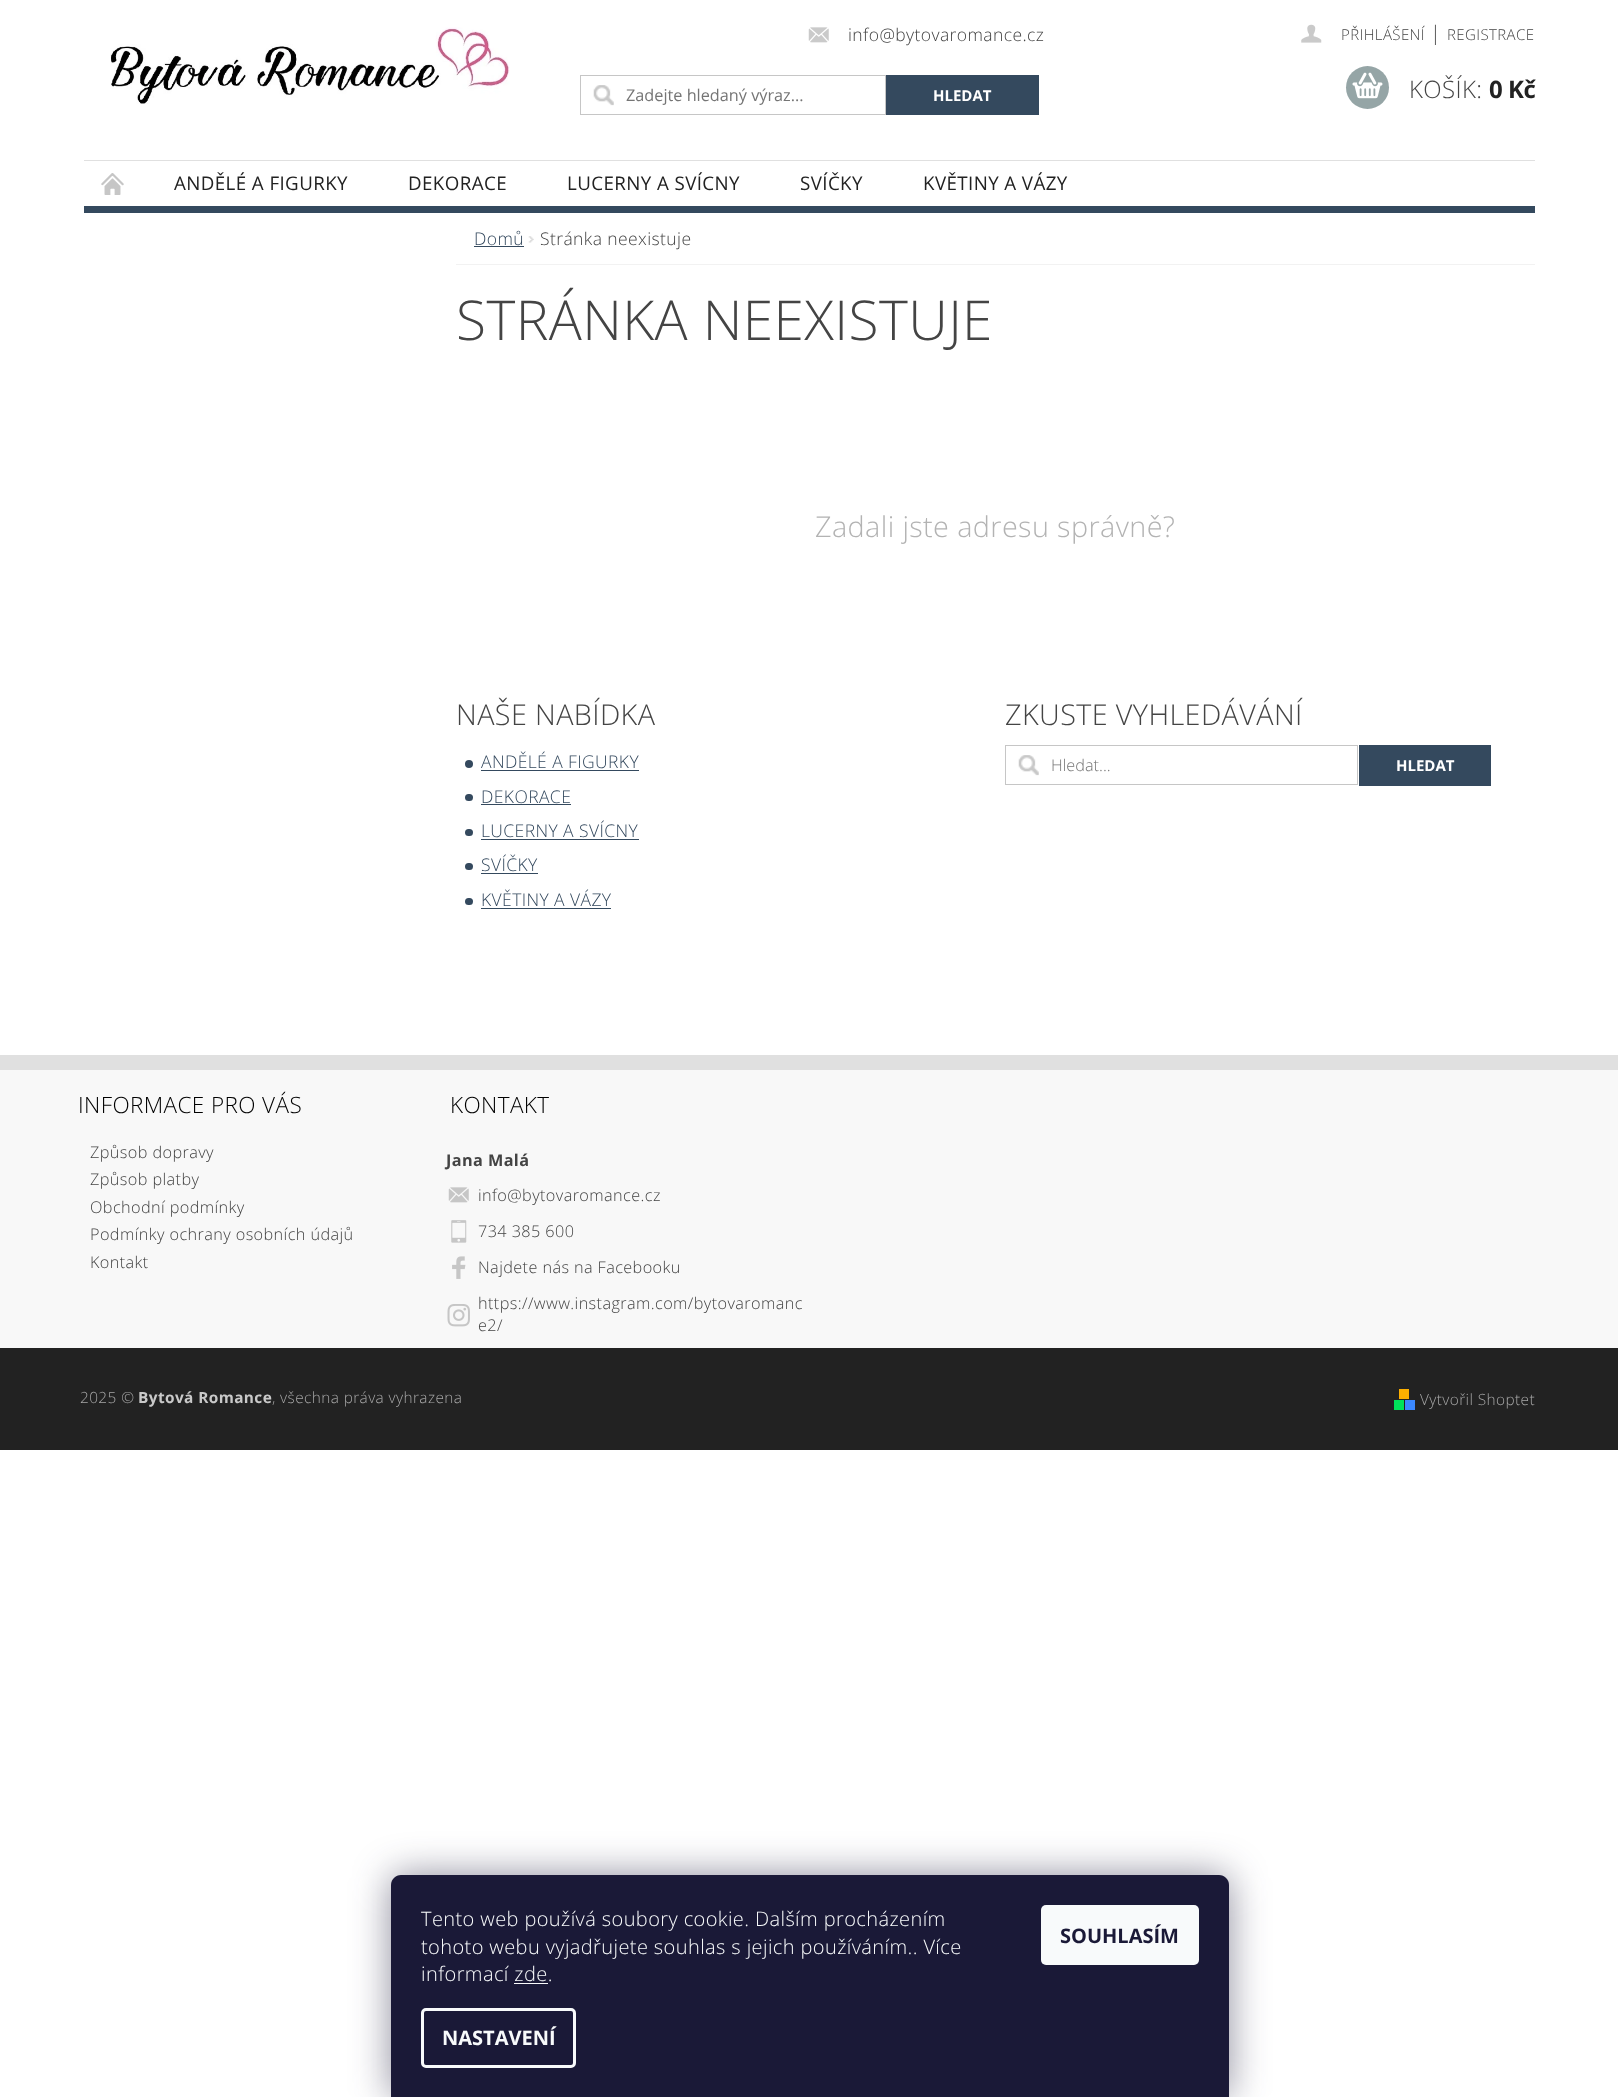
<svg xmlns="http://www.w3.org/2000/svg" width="1618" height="2097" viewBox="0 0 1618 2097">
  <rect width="100%" height="100%" fill="rgb(255,255,255)"/>
  <rect x="84" y="206" width="1451" height="7" fill="rgb(52,73,94)"/>
  <image x="110" y="27" width="400" height="77" href="pic1.png"/>
  <image x="808" y="27" width="21" height="16" href="pic2.png"/>
  <text x="848" y="41" font-family="Open Sans" font-size="17.5" font-weight="300" letter-spacing="0.4" fill="rgb(68,68,68)">info@bytovaromance.cz</text>
  <image x="593" y="85" width="21" height="21" href="pic3.png"/>
  <rect x="580.5" y="75.5" width="305" height="39" fill="none" stroke="rgb(198,198,198)"/>
  <text x="626" y="101" font-family="Open Sans" font-size="16.25" fill="rgb(117,117,117)">Zadejte hledaný výraz...</text>
  <rect x="886" y="75" width="153" height="40" fill="rgb(52,73,94)"/>
  <text x="933" y="101" font-family="Open Sans" font-size="15" font-weight="bold" fill="rgb(255,255,255)">HLEDAT</text>
  <image x="1301" y="24" width="21" height="19" href="pic4.png"/>
  <text x="1341" y="40" font-family="Open Sans" font-size="15" font-weight="300" letter-spacing="0.4" fill="rgb(68,68,68)">PŘIHLÁŠENÍ</text>
  <text x="1430" y="40" font-family="Open Sans" font-size="20" font-weight="300" letter-spacing="0.4" fill="rgb(68,68,68)">|</text>
  <text x="1447" y="40" font-family="Open Sans" font-size="15" font-weight="300" letter-spacing="0.4" fill="rgb(68,68,68)">REGISTRACE</text>
  <circle cx="1367.5" cy="87.5" r="21.5" fill="rgb(149,165,166)"/>
  <image x="1352" y="72" width="31" height="27" href="pic5.png"/>
  <text x="1409" y="98" font-family="Open Sans" font-size="24" font-weight="300" letter-spacing="0.4" fill="rgb(68,68,68)">KOŠÍK:</text>
  <text x="1489" y="98" font-family="Open Sans" font-size="24" font-weight="bold" letter-spacing="-0.5" fill="rgb(34,34,34)">0 Kč</text>
  <rect x="84" y="160" width="1451" height="1" fill="rgb(224,224,224)"/>
  <image x="101" y="173" width="23" height="22" href="pic6.png"/>
  <g font-family="Open Sans" font-size="18.75" letter-spacing="0.4" fill="rgb(34,34,34)">
    <text x="174" y="190">ANDĚLÉ A FIGURKY</text>
    <text x="408" y="190">DEKORACE</text>
    <text x="567" y="190">LUCERNY A SVÍCNY</text>
    <text x="800" y="190">SVÍČKY</text>
    <text x="923" y="190">KVĚTINY A VÁZY</text>
  </g>
  <rect x="456" y="264" width="1079" height="1" fill="rgb(242,242,242)"/>
  <text x="474" y="245" font-family="Open Sans" font-size="17.5" font-weight="300" letter-spacing="0.4" fill="rgb(52,73,94)">Domů</text>
  <rect x="474" y="246" width="50" height="1" fill="rgb(52,73,94)"/>
  <image x="528" y="236" width="6" height="7" href="pic7.png"/>
  <text x="540" y="245" font-family="Open Sans" font-size="17.5" font-weight="300" letter-spacing="0.4" fill="rgb(68,68,68)">Stránka neexistuje</text>
  <text x="456" y="340" font-family="Open Sans" font-size="55" font-weight="300" letter-spacing="0.4" fill="rgb(68,68,68)">STRÁNKA NEEXISTUJE</text>
  <text x="815" y="537" font-family="Open Sans" font-size="28.75" font-weight="300" letter-spacing="0.4" fill="rgb(179,179,179)">Zadali jste adresu správně?</text>
  <text x="456" y="725" font-family="Open Sans" font-size="28.75" font-weight="300" letter-spacing="0.4" fill="rgb(68,68,68)">NAŠE NABÍDKA</text>
  <circle cx="469" cy="764" r="4" fill="rgb(52,73,94)"/>
  <text x="481" y="768" font-family="Open Sans" font-size="17.5" font-weight="300" letter-spacing="0.4" fill="rgb(52,73,94)">ANDĚLÉ A FIGURKY</text>
  <rect x="481" y="770" width="158" height="1" fill="rgb(52,73,94)"/>
  <rect x="465" y="794" width="8" height="7" rx="3.5" fill="rgb(52,73,94)"/>
  <text x="481" y="803" font-family="Open Sans" font-size="17.5" font-weight="300" letter-spacing="0.4" fill="rgb(52,73,94)">DEKORACE</text>
  <rect x="481" y="804" width="90" height="1" fill="rgb(52,73,94)"/>
  <rect x="465" y="829" width="8" height="7" rx="3.5" fill="rgb(52,73,94)"/>
  <text x="481" y="837" font-family="Open Sans" font-size="17.5" font-weight="300" letter-spacing="0.4" fill="rgb(52,73,94)">LUCERNY A SVÍCNY</text>
  <rect x="481" y="839" width="158" height="1" fill="rgb(52,73,94)"/>
  <rect x="465" y="863" width="8" height="7" rx="3.5" fill="rgb(52,73,94)"/>
  <text x="481" y="871" font-family="Open Sans" font-size="17.5" font-weight="300" letter-spacing="0.4" fill="rgb(52,73,94)">SVÍČKY</text>
  <rect x="481" y="873" width="57" height="1" fill="rgb(52,73,94)"/>
  <rect x="465" y="898" width="8" height="7" rx="3.5" fill="rgb(52,73,94)"/>
  <text x="481" y="906" font-family="Open Sans" font-size="17.5" font-weight="300" letter-spacing="0.4" fill="rgb(52,73,94)">KVĚTINY A VÁZY</text>
  <rect x="481" y="908" width="130" height="1" fill="rgb(52,73,94)"/>
  <text x="1005" y="725" font-family="Open Sans" font-size="28.75" font-weight="300" letter-spacing="0.4" fill="rgb(68,68,68)">ZKUSTE VYHLEDÁVÁNÍ</text>
  <image x="1018" y="755" width="21" height="21" href="pic8.png"/>
  <rect x="1005.5" y="745.5" width="352" height="39" fill="none" stroke="rgb(198,198,198)"/>
  <text x="1051" y="771" font-family="Open Sans" font-size="16.25" font-weight="300" fill="rgb(117,117,117)">Hledat...</text>
  <rect x="1359" y="745" width="132" height="41" fill="rgb(52,73,94)"/>
  <text x="1396" y="771" font-family="Open Sans" font-size="15" font-weight="bold" fill="rgb(255,255,255)">HLEDAT</text>
  <rect x="0" y="1070" width="1618" height="278" fill="rgb(248,248,248)"/>
  <rect x="0" y="1055" width="1618" height="15" fill="rgb(224,224,224)"/>
  <text x="78" y="1113" font-family="Open Sans" font-size="22.5" font-weight="300" letter-spacing="0.4" fill="rgb(0,0,0)">INFORMACE PRO VÁS</text>
  <g font-family="Open Sans" font-size="16.25" font-weight="300" letter-spacing="0.4" fill="rgb(68,68,68)">
    <text>
      <tspan x="90" y="1158">Způsob dopravy</tspan>
      <tspan x="90" y="1185">Způsob platby</tspan>
      <tspan x="90" y="1213">Obchodní podmínky</tspan>
      <tspan x="90" y="1240">Podmínky ochrany osobních údajů</tspan>
      <tspan x="90" y="1268">Kontakt</tspan>
    </text>
  </g>
  <text x="450" y="1113" font-family="Open Sans" font-size="22.5" font-weight="300" letter-spacing="0.4" fill="rgb(0,0,0)">KONTAKT</text>
  <text x="446" y="1166" font-family="Open Sans" font-size="16.25" font-weight="bold" letter-spacing="0.4" fill="rgb(68,68,68)">Jana Malá</text>
  <image x="448" y="1187" width="21" height="16" href="pic9.png"/>
  <text x="478" y="1201" font-family="Open Sans" font-size="16.25" font-weight="300" letter-spacing="0.4" fill="rgb(68,68,68)">info@bytovaromance.cz</text>
  <image x="451" y="1220" width="16" height="23" href="pic10.png"/>
  <text x="478" y="1237" font-family="Open Sans" font-size="16.25" font-weight="300" letter-spacing="0.4" fill="rgb(68,68,68)">734 385 600</text>
  <image x="452" y="1256" width="14" height="23" href="pic11.png"/>
  <text x="478" y="1273" font-family="Open Sans" font-size="16.25" font-weight="300" letter-spacing="0.4" fill="rgb(68,68,68)">Najdete nás na Facebooku</text>
  <image x="447" y="1304" width="23" height="23" href="pic12.png"/>
  <g font-family="Open Sans" font-size="16.25" font-weight="300" letter-spacing="0.4" fill="rgb(68,68,68)">
    <text>
      <tspan x="478" y="1309">https://www.instagram.com/bytovaromanc</tspan>
      <tspan x="478" y="1331">e2/</tspan>
    </text>
  </g>
  <rect x="0" y="1348" width="1618" height="102" fill="rgb(34,34,34)"/>
  <text x="80" y="1403" font-family="Open Sans" font-size="15.4" font-weight="300" letter-spacing="0.4" fill="rgb(166,166,166)">2025 ©</text>
  <text x="138" y="1403" font-family="Open Sans" font-size="15.4" font-weight="bold" letter-spacing="0.4" fill="rgb(201,201,201)">Bytová Romance</text>
  <text x="272" y="1403" font-family="Open Sans" font-size="15.4" font-weight="300" letter-spacing="0.4" fill="rgb(166,166,166)">, všechna práva vyhrazena</text>
  <rect x="1399" y="1389" width="10" height="10" fill="rgb(252,175,0)"/>
  <rect x="1394" y="1400" width="10" height="10" fill="rgb(0,226,90)"/>
  <rect x="1405" y="1400" width="10" height="10" fill="rgb(59,136,255)"/>
  <text x="1420" y="1405" font-family="Open Sans" font-size="15.4" font-weight="300" letter-spacing="0.4" fill="rgb(166,166,166)">Vytvořil Shoptet</text>
  <rect x="391" y="1875" width="838" height="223" rx="10" fill="rgba(27,25,57,0.5)" filter="blur(19px)"/>
  <path d="M401 1875H1219C1224.5 1875 1229 1879.5 1229 1885V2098H391V1885C391 1879.5 395.5 1875 401 1875Z" fill="rgb(26,25,55)"/>
  <g font-family="Open Sans" font-size="20" font-weight="300" letter-spacing="0.4" fill="rgb(248,250,251)">
    <text>
      <tspan x="421" y="1926">Tento web používá soubory cookie. Dalším procházením</tspan>
      <tspan x="421" y="1954">tohoto webu vyjadřujete souhlas s jejich používáním.. Více</tspan>
      <tspan x="421" y="1981">informací zde.</tspan>
    </text>
  </g>
  <rect x="514" y="1983" width="34" height="1" fill="rgb(248,250,251)"/>
  <rect x="422.5" y="2009.5" width="152" height="57" rx="3.5" fill="none" stroke="rgb(248,250,251)" stroke-width="3"/>
  <text x="442" y="2045" font-family="Open Sans" font-size="20" font-weight="bold" fill="rgb(248,250,251)">NASTAVENÍ</text>
  <rect x="1041" y="1905" width="158" height="60" rx="5" fill="rgb(248,250,251)"/>
  <text x="1060" y="1943" font-family="Open Sans" font-size="20" font-weight="bold" fill="rgb(26,25,55)">SOUHLASÍM</text>
</svg>
